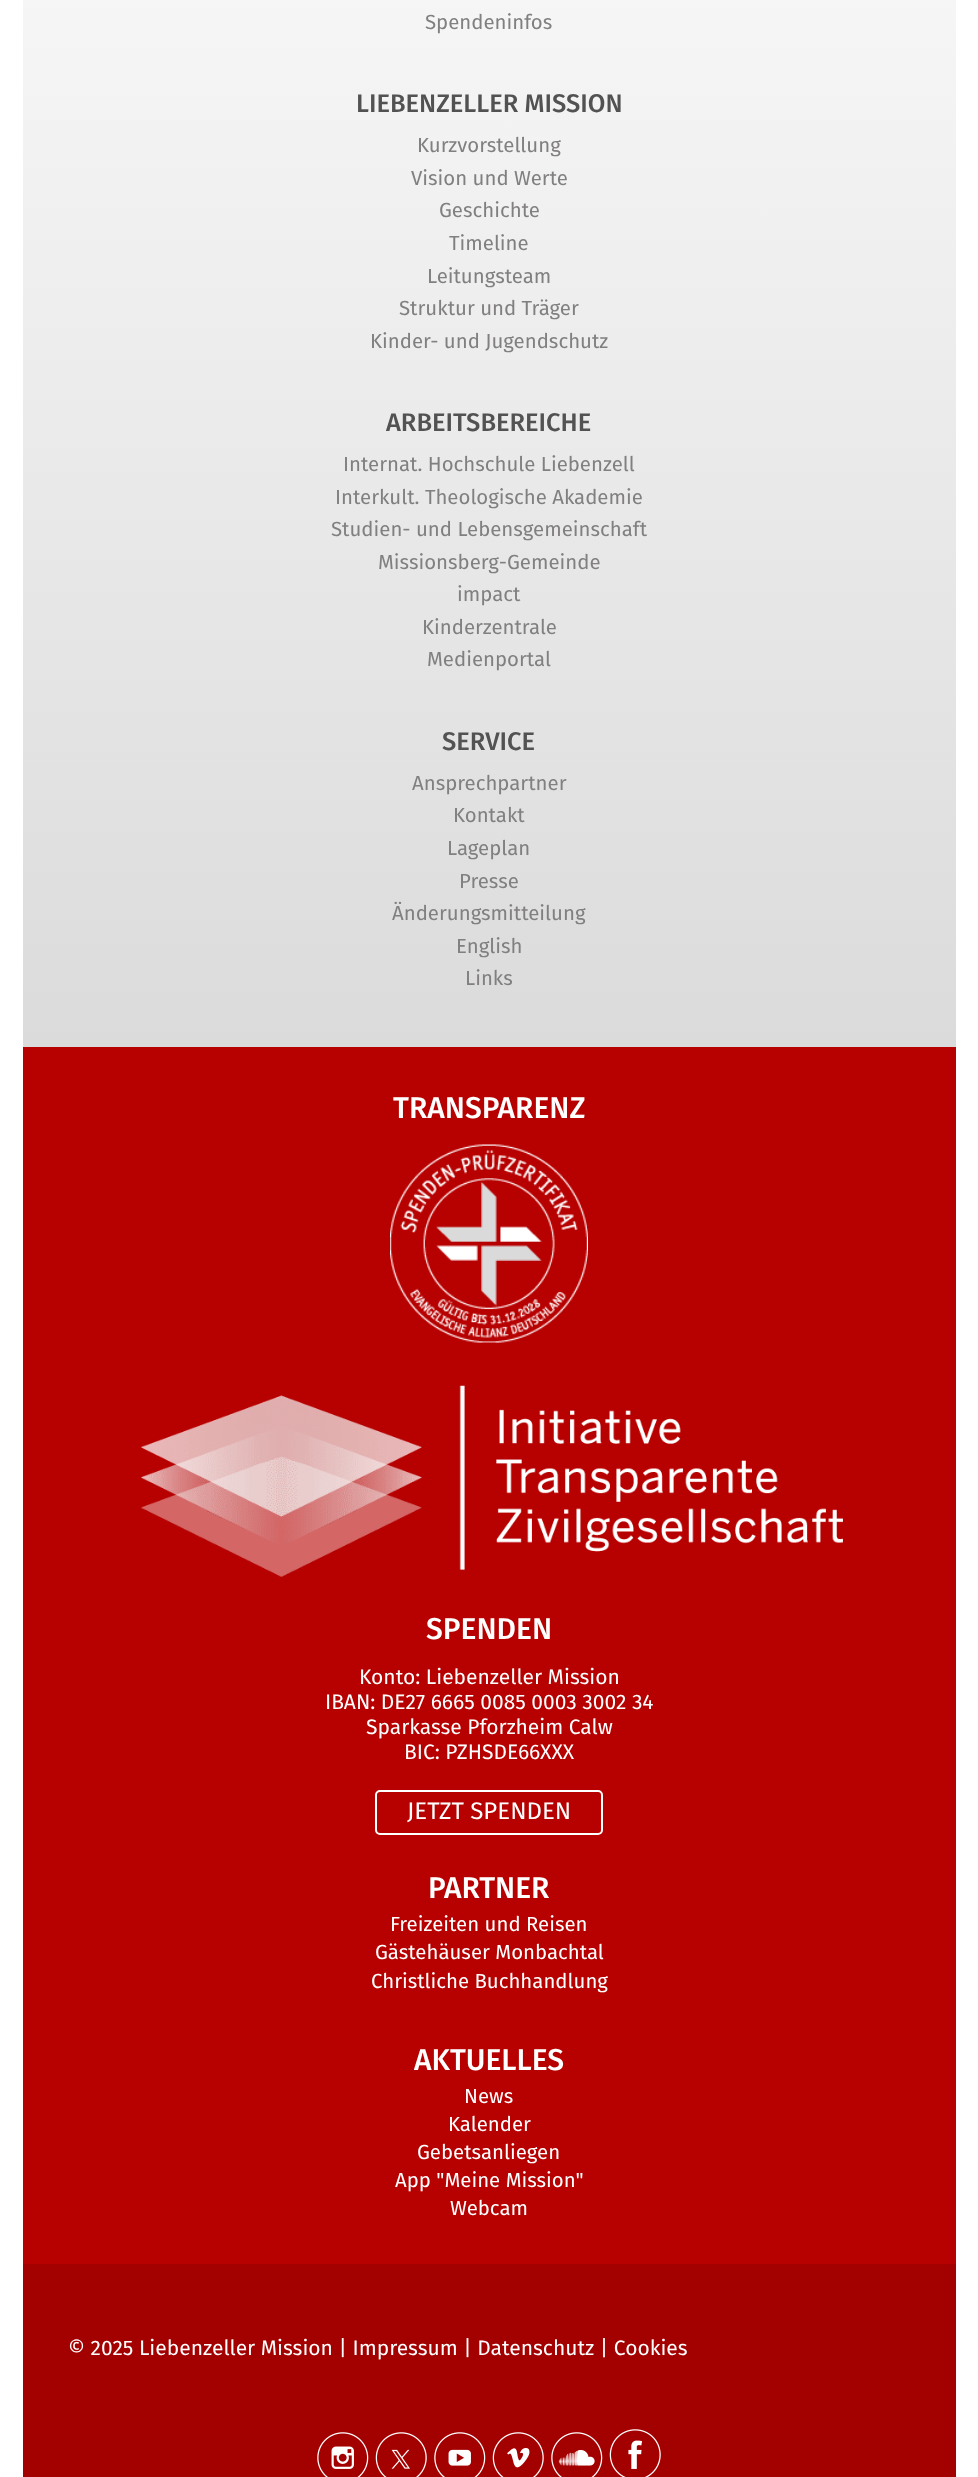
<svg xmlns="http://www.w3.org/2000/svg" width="978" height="2477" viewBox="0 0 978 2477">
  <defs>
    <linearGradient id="g1" gradientUnits="userSpaceOnUse" x1="489" y1="-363" x2="489" y2="1047"><stop offset="0" stop-color="rgb(255,255,255)"/><stop offset="1" stop-color="rgb(219,219,219)"/></linearGradient>
  </defs>
  <rect width="100%" height="100%" fill="rgb(255,255,255)"/>
  <rect x="23" y="0" width="933" height="1047" fill="url(#g1)"/>
  <text x="425" y="29" font-family="Fira Sans" font-size="20.4" fill="rgb(129,127,127)">Spendeninfos</text>
  <text x="356" y="112" font-family="Fira Sans" font-size="25.5" font-weight="500" fill="rgb(82,82,82)">LIEBENZELLER MISSION</text>
  <g font-family="Fira Sans" font-size="20.4" fill="rgb(129,127,127)">
    <text x="417" y="152">Kurzvorstellung</text>
    <text x="411" y="185">Vision und Werte</text>
    <text x="439" y="217">Geschichte</text>
    <text x="449" y="250">Timeline</text>
    <text x="427" y="283">Leitungsteam</text>
    <text x="399" y="315">Struktur und Träger</text>
    <text x="370" y="348">Kinder- und Jugendschutz</text>
  </g>
  <text x="386" y="431" font-family="Fira Sans" font-size="25.5" font-weight="500" fill="rgb(82,82,82)">ARBEITSBEREICHE</text>
  <g font-family="Fira Sans" font-size="20.4" fill="rgb(129,127,127)">
    <text x="343" y="471">Internat. Hochschule Liebenzell</text>
    <text x="335" y="504">Interkult. Theologische Akademie</text>
    <text x="331" y="536">Studien- und Lebensgemeinschaft</text>
    <text x="378" y="569">Missionsberg-Gemeinde</text>
    <text x="457" y="601">impact</text>
    <text x="422" y="634">Kinderzentrale</text>
    <text x="427" y="666">Medienportal</text>
  </g>
  <text x="442" y="750" font-family="Fira Sans" font-size="25.5" font-weight="500" fill="rgb(82,82,82)">SERVICE</text>
  <g font-family="Fira Sans" font-size="20.4" fill="rgb(129,127,127)">
    <text x="412" y="790">Ansprechpartner</text>
    <text x="453" y="822">Kontakt</text>
    <text x="447" y="855">Lageplan</text>
    <text x="459" y="888">Presse</text>
    <text x="392" y="920">Änderungsmitteilung</text>
    <text x="456" y="953">English</text>
    <text x="465" y="985">Links</text>
  </g>
  <rect x="23" y="1047" width="933" height="1217" fill="rgb(183,0,0)"/>
  <text x="393" y="1118" font-family="Fira Sans" font-size="30" font-weight="500" fill="rgb(255,255,255)">TRANSPARENZ</text>
  <image x="390" y="1144" width="198" height="199" href="pic1.png"/>
  <image x="141" y="1385" width="702" height="192" href="pic2.png"/>
  <text x="426" y="1639" font-family="Fira Sans" font-size="30" font-weight="500" fill="rgb(255,255,255)">SPENDEN</text>
  <g font-family="Fira Sans" font-size="21" fill="rgb(255,255,255)">
    <text x="359" y="1684">Konto: Liebenzeller Mission</text>
    <text x="325" y="1709">IBAN: DE27 6665 0085 0003 3002 34</text>
    <text x="366" y="1734">Sparkasse Pforzheim Calw</text>
    <text x="404" y="1759">BIC: PZHSDE66XXX</text>
  </g>
  <rect x="376" y="1791" width="226" height="43" rx="4" fill="none" stroke="rgb(255,255,255)" stroke-width="2"/>
  <text x="407" y="1819" font-family="Fira Sans" font-size="24" fill="rgb(255,255,255)">JETZT SPENDEN</text>
  <text x="428" y="1898" font-family="Fira Sans" font-size="30" font-weight="500" fill="rgb(255,255,255)">PARTNER</text>
  <g font-family="Fira Sans" font-size="20.4" fill="rgb(255,255,255)">
    <text x="390" y="1931">Freizeiten und Reisen</text>
    <text x="375" y="1959">Gästehäuser Monbachtal</text>
    <text x="371" y="1988">Christliche Buchhandlung</text>
  </g>
  <text x="414" y="2070" font-family="Fira Sans" font-size="30" font-weight="500" fill="rgb(255,255,255)">AKTUELLES</text>
  <g font-family="Fira Sans" font-size="20.4" fill="rgb(255,255,255)">
    <text x="464" y="2103">News</text>
    <text x="448" y="2131">Kalender</text>
    <text x="417" y="2159">Gebetsanliegen</text>
    <text x="395" y="2187">App "Meine Mission"</text>
    <text x="450" y="2215">Webcam</text>
  </g>
  <rect x="23" y="2264" width="933" height="213" fill="rgb(163,0,0)"/>
  <text x="68" y="2355" font-family="Fira Sans" font-size="21" fill="rgb(255,255,255)">© 2025 Liebenzeller Mission | Impressum | Datenschutz | Cookies</text>
  <image x="317" y="2432" width="52" height="45" href="pic3.png"/>
  <image x="375" y="2432" width="52" height="45" href="pic4.png"/>
  <image x="434" y="2432" width="52" height="45" href="pic5.png"/>
  <image x="492" y="2432" width="52" height="45" href="pic6.png"/>
  <image x="551" y="2432" width="52" height="45" href="pic7.png"/>
  <image x="609" y="2429" width="52" height="48" href="pic8.png"/>
</svg>
